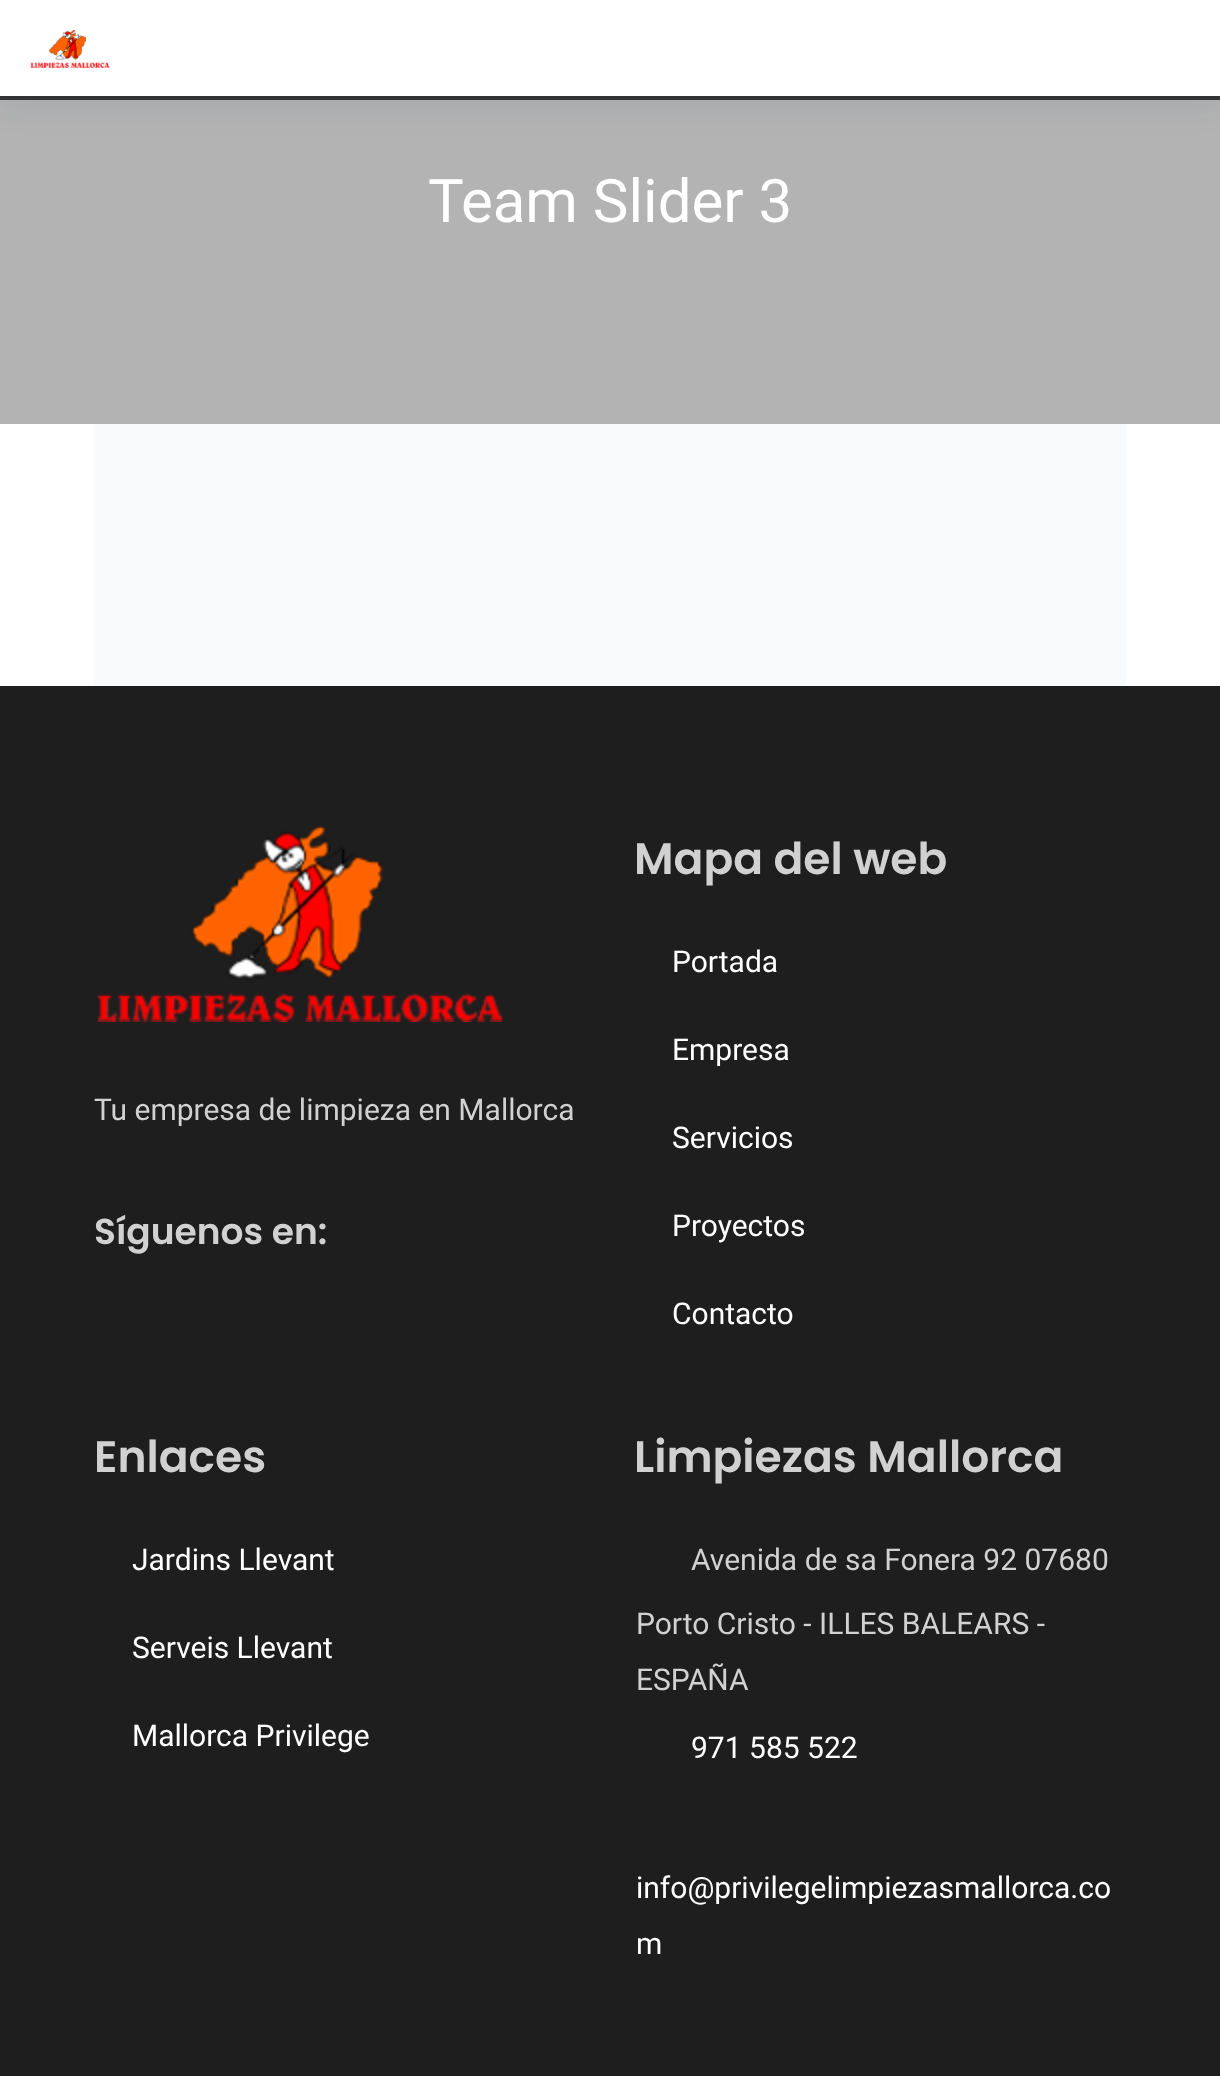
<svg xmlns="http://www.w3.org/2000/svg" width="1220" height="2076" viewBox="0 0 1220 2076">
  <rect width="100%" height="100%" fill="rgb(255,255,255)"/>
  <rect x="0" y="100" width="1220" height="324" fill="rgb(179,179,179)"/>
  <rect x="0" y="0" width="1220" height="100" fill="rgba(0,35,90,0.1)" filter="blur(18px)"/>
  <rect x="0" y="0" width="1220" height="96" fill="rgb(255,255,255)"/>
  <rect x="0" y="96" width="1220" height="4" fill="rgb(51,51,51)"/>
  <image x="30" y="30" width="80" height="38" href="pic1.png"/>
  <text x="428" y="222" font-family="Roboto" font-size="60" fill="rgb(255,255,255)">Team Slider 3</text>
  <rect x="94" y="424" width="1032" height="262" fill="rgb(249,250,252)"/>
  <rect x="0" y="686" width="1220" height="1390" fill="rgb(30,30,30)"/>
  <image x="97" y="826" width="406" height="196" href="pic2.png"/>
  <text x="94" y="1120" font-family="Roboto" font-size="30" fill="rgb(209,209,209)">Tu empresa de limpieza en Mallorca</text>
  <text x="94" y="1244" font-family="Poppins" font-size="36" font-weight="600" fill="rgb(209,209,209)">Síguenos en:</text>
  <text x="634" y="874" font-family="Poppins" font-size="44" font-weight="600" fill="rgb(209,209,209)">Mapa del web</text>
  <g font-family="Roboto" font-size="30" fill="rgb(255,255,255)">
    <text x="672" y="972">Portada</text>
    <text x="672" y="1060">Empresa</text>
    <text x="672" y="1148">Servicios</text>
    <text x="672" y="1236">Proyectos</text>
    <text x="672" y="1324">Contacto</text>
  </g>
  <text x="94" y="1472" font-family="Poppins" font-size="44" font-weight="600" fill="rgb(209,209,209)">Enlaces</text>
  <g font-family="Roboto" font-size="30" fill="rgb(255,255,255)">
    <text x="132" y="1570">Jardins Llevant</text>
    <text x="132" y="1658">Serveis Llevant</text>
    <text x="132" y="1746">Mallorca Privilege</text>
  </g>
  <text x="634" y="1472" font-family="Poppins" font-size="44" font-weight="600" fill="rgb(209,209,209)">Limpiezas Mallorca</text>
  <g font-family="Roboto" font-size="30" fill="rgb(209,209,209)">
    <text x="691" y="1570">Avenida de sa Fonera 92 07680</text>
    <text>
      <tspan x="636" y="1634">Porto Cristo - ILLES BALEARS -</tspan>
      <tspan x="636" y="1690">ESPAÑA</tspan>
    </text>
  </g>
  <g font-family="Roboto" font-size="30" fill="rgb(255,255,255)">
    <text x="691" y="1758">971 585 522</text>
    <text>
      <tspan x="636" y="1898">info@privilegelimpiezasmallorca.co</tspan>
      <tspan x="636" y="1954">m</tspan>
    </text>
  </g>
</svg>
